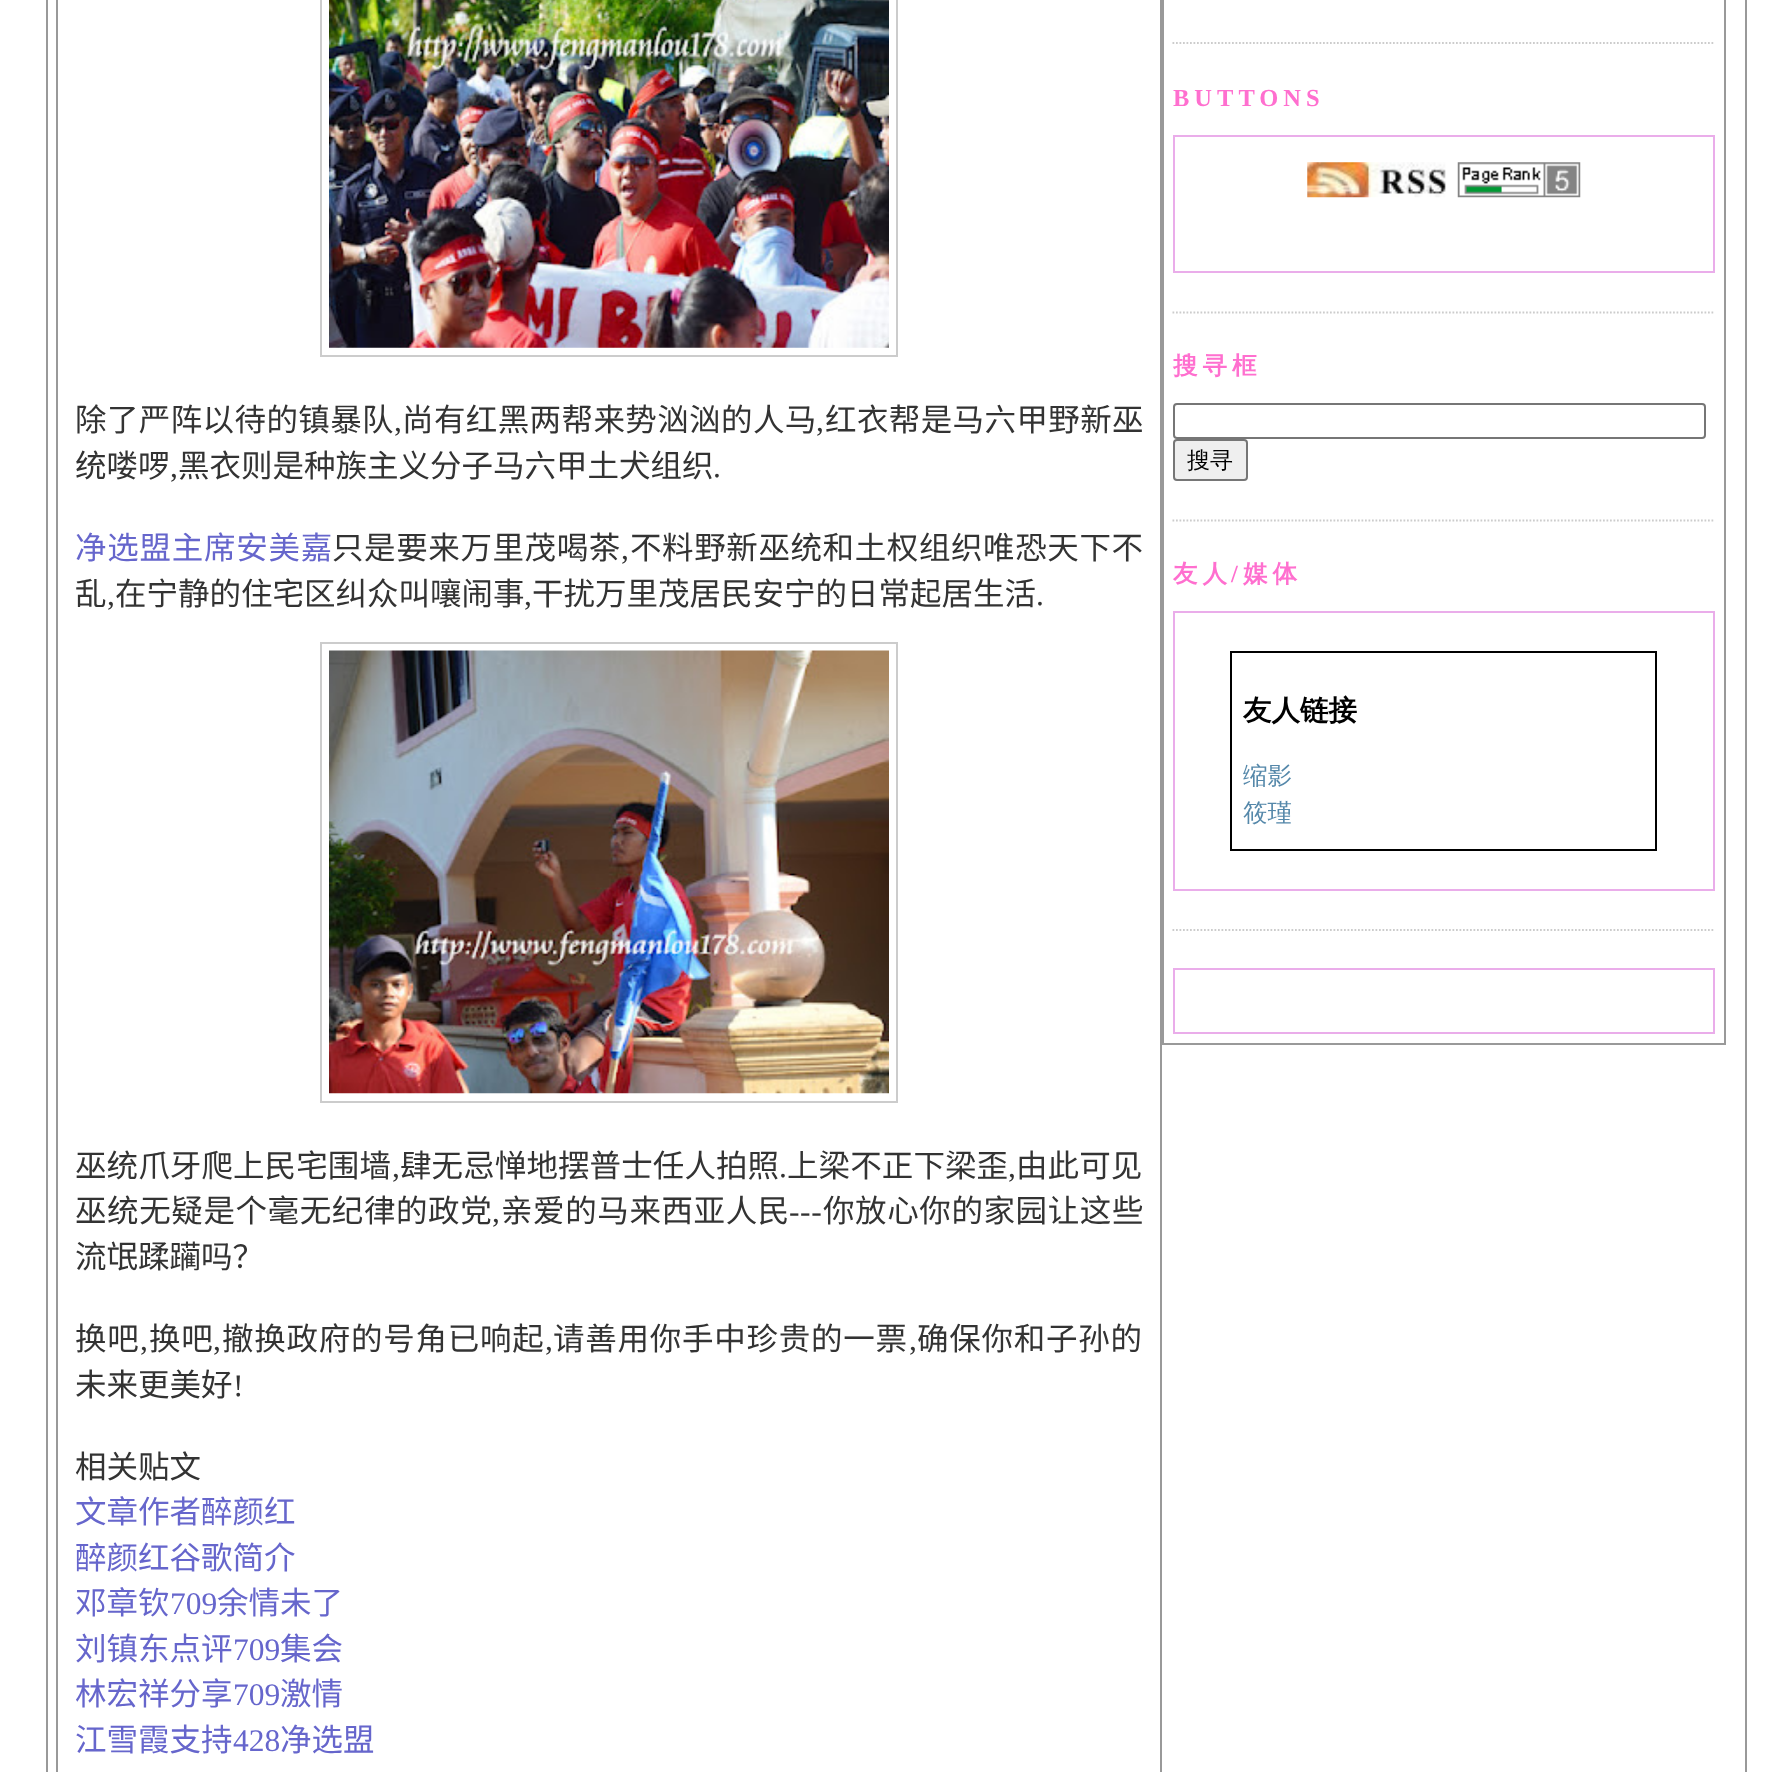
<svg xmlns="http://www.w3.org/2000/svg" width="1792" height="1772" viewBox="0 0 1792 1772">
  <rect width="100%" height="100%" fill="rgb(255,255,255)"/>
  <rect x="47" y="-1" width="1699" height="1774" fill="none" stroke="rgb(153,153,153)" stroke-width="2"/>
  <rect x="57" y="-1" width="1104" height="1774" fill="none" stroke="rgb(153,153,153)" stroke-width="2"/>
  <rect x="321" y="-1" width="576" height="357" fill="none" stroke="rgb(204,204,204)" stroke-width="2"/>
  <image x="329" y="0" width="560" height="348" href="pic1.png"/>
  <text x="75" y="431" font-family="Noto Sans CJK SC" font-size="31.5" letter-spacing="0.4" fill="rgb(51,51,51)">除了严阵以待的镇暴队</text>
  <text x="394" y="431" font-family="Liberation Serif" font-size="31.5" letter-spacing="0.4" fill="rgb(51,51,51)">,</text>
  <text x="402" y="431" font-family="Noto Sans CJK SC" font-size="31.5" letter-spacing="0.4" fill="rgb(51,51,51)">尚有红黑两帮来势汹汹的人马</text>
  <text x="816" y="431" font-family="Liberation Serif" font-size="31.5" letter-spacing="0.4" fill="rgb(51,51,51)">,</text>
  <text x="825" y="431" font-family="Noto Sans CJK SC" font-size="31.5" letter-spacing="0.4" fill="rgb(51,51,51)">红衣帮是马六甲野新巫</text>
  <text x="75" y="477" font-family="Noto Sans CJK SC" font-size="31.5" fill="rgb(51,51,51)">统喽啰</text>
  <text x="170" y="477" font-family="Liberation Serif" font-size="31.5" fill="rgb(51,51,51)">,</text>
  <text x="178" y="477" font-family="Noto Sans CJK SC" font-size="31.5" fill="rgb(51,51,51)">黑衣则是种族主义分子马六甲土犬组织</text>
  <text x="713" y="477" font-family="Liberation Serif" font-size="31.5" fill="rgb(51,51,51)">.</text>
  <text x="75" y="559" font-family="Noto Sans CJK SC" font-size="31.5" letter-spacing="0.75" fill="rgb(102,102,204)">净选盟主席安美嘉</text>
  <text x="332" y="559" font-family="Noto Sans CJK SC" font-size="31.5" letter-spacing="0.6" fill="rgb(51,51,51)">只是要来万里茂喝茶</text>
  <text x="621" y="559" font-family="Liberation Serif" font-size="31.5" letter-spacing="0.6" fill="rgb(51,51,51)">,</text>
  <text x="630" y="559" font-family="Noto Sans CJK SC" font-size="31.5" letter-spacing="0.6" fill="rgb(51,51,51)">不料野新巫统和土权组织唯恐天下不</text>
  <text x="75" y="605" font-family="Noto Sans CJK SC" font-size="31.5" fill="rgb(51,51,51)">乱</text>
  <text x="107" y="605" font-family="Liberation Serif" font-size="31.5" fill="rgb(51,51,51)">,</text>
  <text x="115" y="605" font-family="Noto Sans CJK SC" font-size="31.5" fill="rgb(51,51,51)">在宁静的住宅区纠众叫嚷闹事</text>
  <text x="524" y="605" font-family="Liberation Serif" font-size="31.5" fill="rgb(51,51,51)">,</text>
  <text x="532" y="605" font-family="Noto Sans CJK SC" font-size="31.5" fill="rgb(51,51,51)">干扰万里茂居民安宁的日常起居生活</text>
  <text x="1036" y="605" font-family="Liberation Serif" font-size="31.5" fill="rgb(51,51,51)">.</text>
  <rect x="321" y="643" width="576" height="459" fill="none" stroke="rgb(204,204,204)" stroke-width="2"/>
  <image x="329" y="650" width="560" height="444" href="pic2.png"/>
  <text x="75" y="1177" font-family="Noto Sans CJK SC" font-size="31.5" letter-spacing="0.1" fill="rgb(51,51,51)">巫统爪牙爬上民宅围墙</text>
  <text x="392" y="1177" font-family="Liberation Serif" font-size="31.5" letter-spacing="0.1" fill="rgb(51,51,51)">,</text>
  <text x="400" y="1177" font-family="Noto Sans CJK SC" font-size="31.5" letter-spacing="0.1" fill="rgb(51,51,51)">肆无忌惮地摆普士任人拍照</text>
  <text x="779" y="1177" font-family="Liberation Serif" font-size="31.5" letter-spacing="0.1" fill="rgb(51,51,51)">.</text>
  <text x="787" y="1177" font-family="Noto Sans CJK SC" font-size="31.5" letter-spacing="0.1" fill="rgb(51,51,51)">上梁不正下梁歪</text>
  <text x="1008" y="1177" font-family="Liberation Serif" font-size="31.5" letter-spacing="0.1" fill="rgb(51,51,51)">,</text>
  <text x="1016" y="1177" font-family="Noto Sans CJK SC" font-size="31.5" letter-spacing="0.1" fill="rgb(51,51,51)">由此可见</text>
  <g font-family="Noto Sans CJK SC" font-size="31.5" letter-spacing="0.6" fill="rgb(51,51,51)">
    <text x="75" y="1222">巫统无疑是个毫无纪律的政党</text>
    <text x="501" y="1222">亲爱的马来西亚人民</text>
  </g>
  <text x="789" y="1222" font-family="Liberation Serif" font-size="31.5" letter-spacing="0.6" fill="rgb(51,51,51)">---</text>
  <text x="823" y="1222" font-family="Noto Sans CJK SC" font-size="31.5" letter-spacing="0.6" fill="rgb(51,51,51)">你放心你的家园让这些</text>
  <text x="492" y="1222" font-family="Liberation Serif" font-size="31.5" letter-spacing="0.6" fill="rgb(51,51,51)">,</text>
  <text x="75" y="1268" font-family="Noto Sans CJK SC" font-size="31.5" fill="rgb(51,51,51)">流氓蹂躏吗？</text>
  <text x="75" y="1350" font-family="Noto Sans CJK SC" font-size="31.5" letter-spacing="0.75" fill="rgb(51,51,51)">换吧</text>
  <text x="140" y="1350" font-family="Liberation Serif" font-size="31.5" letter-spacing="0.75" fill="rgb(51,51,51)">,</text>
  <text x="149" y="1350" font-family="Noto Sans CJK SC" font-size="31.5" letter-spacing="0.75" fill="rgb(51,51,51)">换吧</text>
  <text x="213" y="1350" font-family="Liberation Serif" font-size="31.5" letter-spacing="0.75" fill="rgb(51,51,51)">,</text>
  <text x="222" y="1350" font-family="Noto Sans CJK SC" font-size="31.5" letter-spacing="0.75" fill="rgb(51,51,51)">撤换政府的号角已响起</text>
  <text x="545" y="1350" font-family="Liberation Serif" font-size="31.5" letter-spacing="0.75" fill="rgb(51,51,51)">,</text>
  <text x="553" y="1350" font-family="Noto Sans CJK SC" font-size="31.5" letter-spacing="0.75" fill="rgb(51,51,51)">请善用你手中珍贵的一票</text>
  <text x="909" y="1350" font-family="Liberation Serif" font-size="31.5" letter-spacing="0.75" fill="rgb(51,51,51)">,</text>
  <text x="917" y="1350" font-family="Noto Sans CJK SC" font-size="31.5" letter-spacing="0.75" fill="rgb(51,51,51)">确保你和子孙的</text>
  <text x="75" y="1396" font-family="Noto Sans CJK SC" font-size="31.5" fill="rgb(51,51,51)">未来更美好</text>
  <text x="233" y="1396" font-family="Liberation Serif" font-size="31.5" fill="rgb(51,51,51)">!</text>
  <text x="75" y="1478" font-family="Noto Sans CJK SC" font-size="31.5" fill="rgb(51,51,51)">相关贴文</text>
  <g font-family="Noto Sans CJK SC" font-size="31.5" fill="rgb(102,102,204)">
    <text>
      <tspan x="75" y="1523">文章作者醉颜红</tspan>
      <tspan x="75" y="1569">醉颜红谷歌简介</tspan>
      <tspan x="75" y="1614">邓章钦</tspan>
    </text>
  </g>
  <text x="170" y="1614" font-family="Liberation Serif" font-size="31.5" fill="rgb(102,102,204)">709</text>
  <g font-family="Noto Sans CJK SC" font-size="31.5" fill="rgb(102,102,204)">
    <text x="217" y="1614">余情未了</text>
    <text x="75" y="1660">刘镇东点评</text>
  </g>
  <text x="233" y="1660" font-family="Liberation Serif" font-size="31.5" fill="rgb(102,102,204)">709</text>
  <g font-family="Noto Sans CJK SC" font-size="31.5" fill="rgb(102,102,204)">
    <text x="280" y="1660">集会</text>
    <text x="75" y="1705">林宏祥分享</text>
  </g>
  <text x="233" y="1705" font-family="Liberation Serif" font-size="31.5" fill="rgb(102,102,204)">709</text>
  <g font-family="Noto Sans CJK SC" font-size="31.5" fill="rgb(102,102,204)">
    <text x="280" y="1705">激情</text>
    <text x="75" y="1751">江雪霞支持</text>
  </g>
  <text x="233" y="1751" font-family="Liberation Serif" font-size="31.5" fill="rgb(102,102,204)">428</text>
  <text x="280" y="1751" font-family="Noto Sans CJK SC" font-size="31.5" fill="rgb(102,102,204)">净选盟</text>
  <rect x="1163" y="-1" width="562" height="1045" fill="none" stroke="rgb(153,153,153)" stroke-width="2"/>
  <path d="M1172.5 43H1715" fill="none" stroke="rgb(204,204,204)" stroke-width="1.8" stroke-dasharray="1.75 1.75"/>
  <path d="M1172.5 312.5H1715" fill="none" stroke="rgb(204,204,204)" stroke-width="1.8" stroke-dasharray="1.75 1.75"/>
  <text x="1173" y="106" font-family="Liberation Serif" font-size="24.5" font-weight="bold" letter-spacing="5" fill="rgb(255,111,207)">BUTTONS</text>
  <rect x="1174" y="136" width="540" height="136" fill="none" stroke="rgb(234,173,234)" stroke-width="2"/>
  <image x="1307" y="162" width="139" height="36" href="pic3.png"/>
  <image x="1457" y="162" width="124" height="36" href="pic4.png"/>
  <path d="M1172.5 520.5H1715" fill="none" stroke="rgb(204,204,204)" stroke-width="1.8" stroke-dasharray="1.75 1.75"/>
  <text x="1173" y="374" font-family="WenQuanYi Zen Hei" font-size="24.5" font-weight="bold" letter-spacing="5" fill="rgb(255,111,207)">搜寻框</text>
  <rect x="1174" y="404" width="531" height="34" rx="3" fill="none" stroke="rgb(118,118,118)" stroke-width="2"/>
  <rect x="1174" y="440" width="73" height="40" rx="3" fill="rgb(239,239,239)" stroke="rgb(118,118,118)" stroke-width="2"/>
  <text x="1187" y="468" font-family="WenQuanYi Zen Hei" font-size="23" font-weight="500" fill="rgb(0,0,0)">搜寻</text>
  <path d="M1172.5 930H1715" fill="none" stroke="rgb(204,204,204)" stroke-width="1.8" stroke-dasharray="1.75 1.75"/>
  <text x="1173" y="582" font-family="WenQuanYi Zen Hei" font-size="24.5" font-weight="bold" letter-spacing="5" fill="rgb(255,111,207)">友人</text>
  <text x="1231" y="582" font-family="Liberation Serif" font-size="24.5" font-weight="bold" letter-spacing="5" fill="rgb(255,111,207)">/</text>
  <text x="1243" y="582" font-family="WenQuanYi Zen Hei" font-size="24.5" font-weight="bold" letter-spacing="5" fill="rgb(255,111,207)">媒体</text>
  <rect x="1174" y="612" width="540" height="278" fill="none" stroke="rgb(234,173,234)" stroke-width="2"/>
  <rect x="1231" y="652" width="425" height="198" fill="none" stroke="rgb(0,0,0)" stroke-width="2"/>
  <text x="1243" y="720" font-family="WenQuanYi Zen Hei" font-size="28.5" font-weight="bold" fill="rgb(0,0,0)">友人链接</text>
  <g font-family="WenQuanYi Zen Hei" font-size="24.5" font-weight="500" fill="rgb(85,136,170)">
    <text>
      <tspan x="1243" y="784">缩影</tspan>
      <tspan x="1243" y="821">筱瑾</tspan>
    </text>
  </g>
  <rect x="1174" y="969" width="540" height="64" fill="none" stroke="rgb(234,173,234)" stroke-width="2"/>
</svg>
